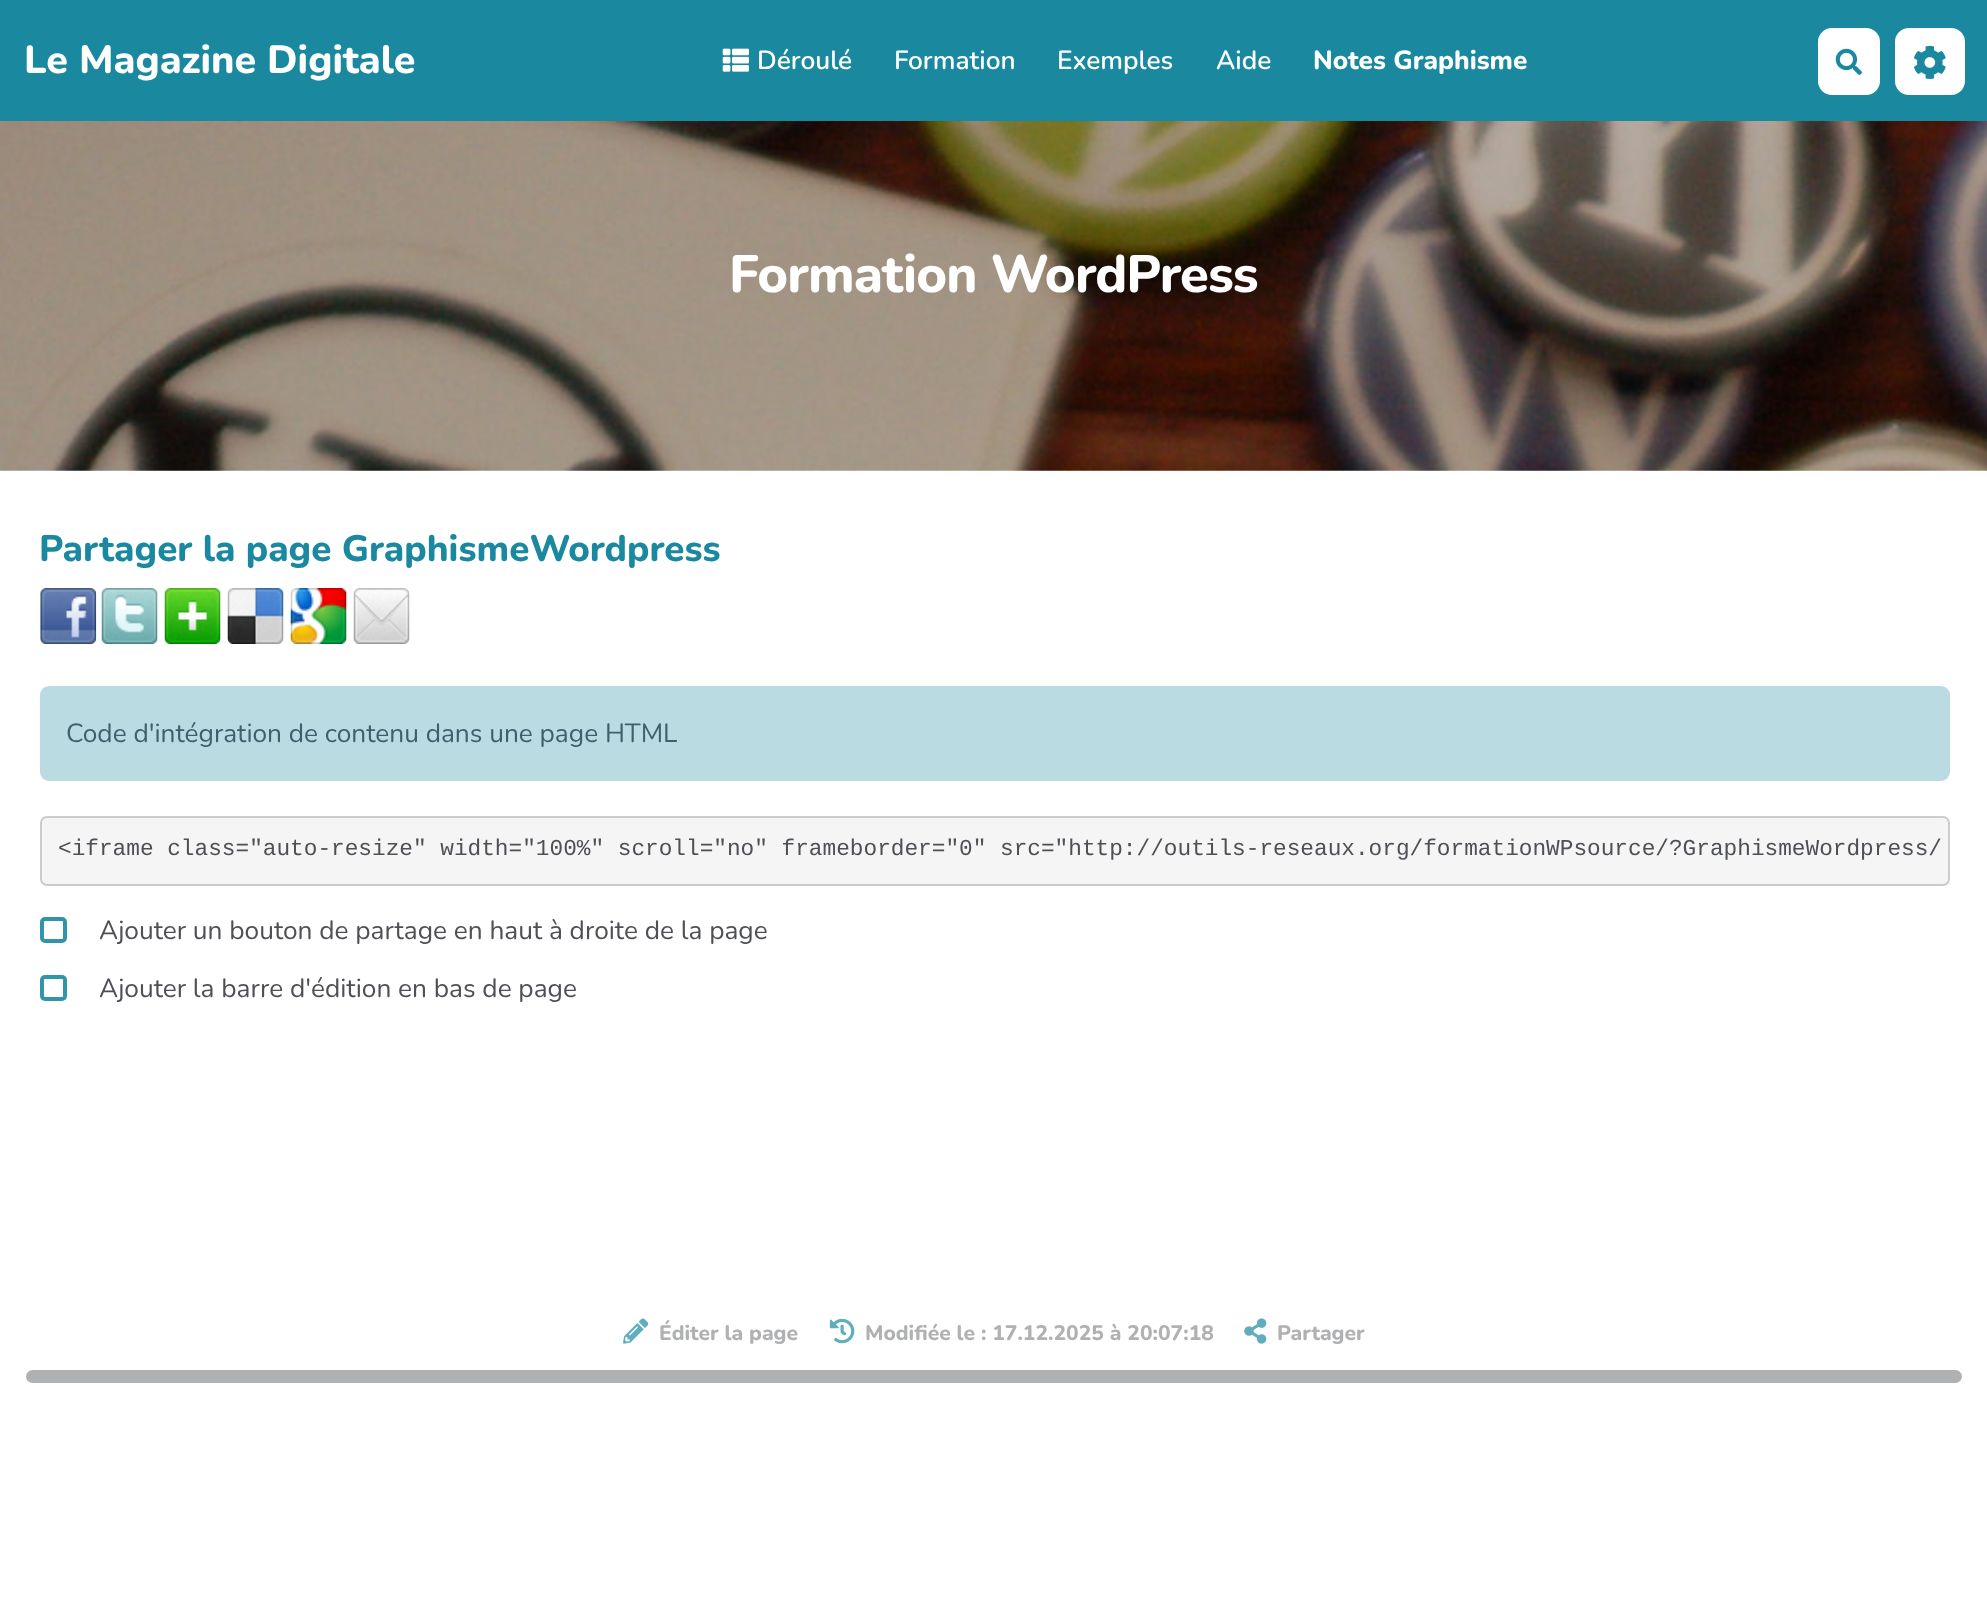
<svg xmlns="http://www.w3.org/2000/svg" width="1987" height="1615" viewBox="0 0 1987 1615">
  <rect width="100%" height="100%" fill="rgb(255,255,255)"/>
  <rect x="0" y="0" width="1987" height="121" fill="rgb(26,137,160)"/>
  <text x="24" y="73" font-family="Nunito" font-size="39.4" font-weight="800" fill="rgb(255,255,255)">Le Magazine Digitale</text>
  <image x="722" y="48" width="27" height="24" href="pic1.png"/>
  <g font-family="Nunito" font-size="26.25" font-weight="600" fill="rgb(255,255,255)">
    <text x="757" y="69">Déroulé</text>
    <text x="894" y="69">Formation</text>
    <text x="1057" y="69">Exemples</text>
    <text x="1216" y="69">Aide</text>
  </g>
  <text x="1313" y="69" font-family="Nunito" font-size="26.25" font-weight="800" fill="rgb(255,255,255)">Notes Graphisme</text>
  <rect x="1819" y="29" width="60" height="65" rx="13" fill="rgb(255,255,255)" stroke="rgb(255,255,255)" stroke-width="2"/>
  <image x="1835" y="48" width="27" height="27" href="pic2.png"/>
  <rect x="1896" y="29" width="68" height="65" rx="13" fill="rgb(255,255,255)" stroke="rgb(255,255,255)" stroke-width="2"/>
  <image x="1914" y="45" width="32" height="34" href="pic3.png"/>
  <image x="0" y="121" width="1987" height="350" href="pic4.png"/>
  <text x="729" y="292" font-family="Nunito" font-size="52.5" font-weight="800" letter-spacing="-0.9" fill="rgb(255,255,255)">Formation WordPress</text>
  <text x="39" y="561" font-family="Nunito" font-size="36.75" font-weight="800" fill="rgb(26,137,160)">Partager la page GraphismeWordpress</text>
  <image x="40" y="588" width="57" height="56" href="pic5.png"/>
  <image x="101" y="588" width="57" height="56" href="pic6.png"/>
  <image x="164" y="588" width="57" height="56" href="pic7.png"/>
  <image x="227" y="588" width="57" height="56" href="pic8.png"/>
  <image x="290" y="588" width="57" height="56" href="pic9.png"/>
  <image x="353" y="588" width="57" height="56" href="pic10.png"/>
  <text x="66" y="742" font-family="Nunito" font-size="26.25" fill="rgb(78,80,86)">Code d'intégration de contenu dans une page HTML</text>
  <rect x="40" y="686" width="1910" height="95" rx="9" fill="rgba(26,137,160,0.3)"/>
  <rect x="41" y="817" width="1908" height="68" rx="6" fill="rgb(245,245,245)" stroke="rgb(204,204,204)" stroke-width="2"/>
  <text x="58" y="855" font-family="Liberation Mono" font-size="22.75" fill="rgb(78,80,86)">&lt;iframe class="auto-resize" width="100%" scroll="no" frameborder="0" src="http://outils-reseaux.org/formationWPsource/?GraphismeWordpress/</text>
  <rect x="42" y="919" width="23" height="22" rx="3" fill="none" stroke="rgb(49,149,170)" stroke-width="4"/>
  <text x="99" y="939" font-family="Nunito" font-size="26.25" fill="rgb(78,80,86)">Ajouter un bouton de partage en haut à droite de la page</text>
  <rect x="42" y="977" width="23" height="22" rx="3" fill="none" stroke="rgb(49,149,170)" stroke-width="4"/>
  <text x="99" y="997" font-family="Nunito" font-size="26.25" fill="rgb(78,80,86)">Ajouter la barre d'édition en bas de page</text>
  <image x="623" y="1318" width="26" height="26" href="pic11.png"/>
  <text x="659" y="1340" font-family="Nunito" font-size="21" font-weight="800" fill="rgb(176,177,179)">Éditer la page</text>
  <image x="829" y="1318" width="26" height="26" href="pic12.png"/>
  <text x="865" y="1340" font-family="Nunito" font-size="21" font-weight="800" fill="rgb(176,177,179)">Modifiée le : 17.12.2025 à 20:07:18</text>
  <image x="1244" y="1318" width="23" height="26" href="pic13.png"/>
  <text x="1277" y="1340" font-family="Nunito" font-size="21" font-weight="800" fill="rgb(176,177,179)">Partager</text>
  <rect x="26" y="1370" width="1936" height="13" rx="6.5" fill="rgb(176,177,179)"/>
</svg>
